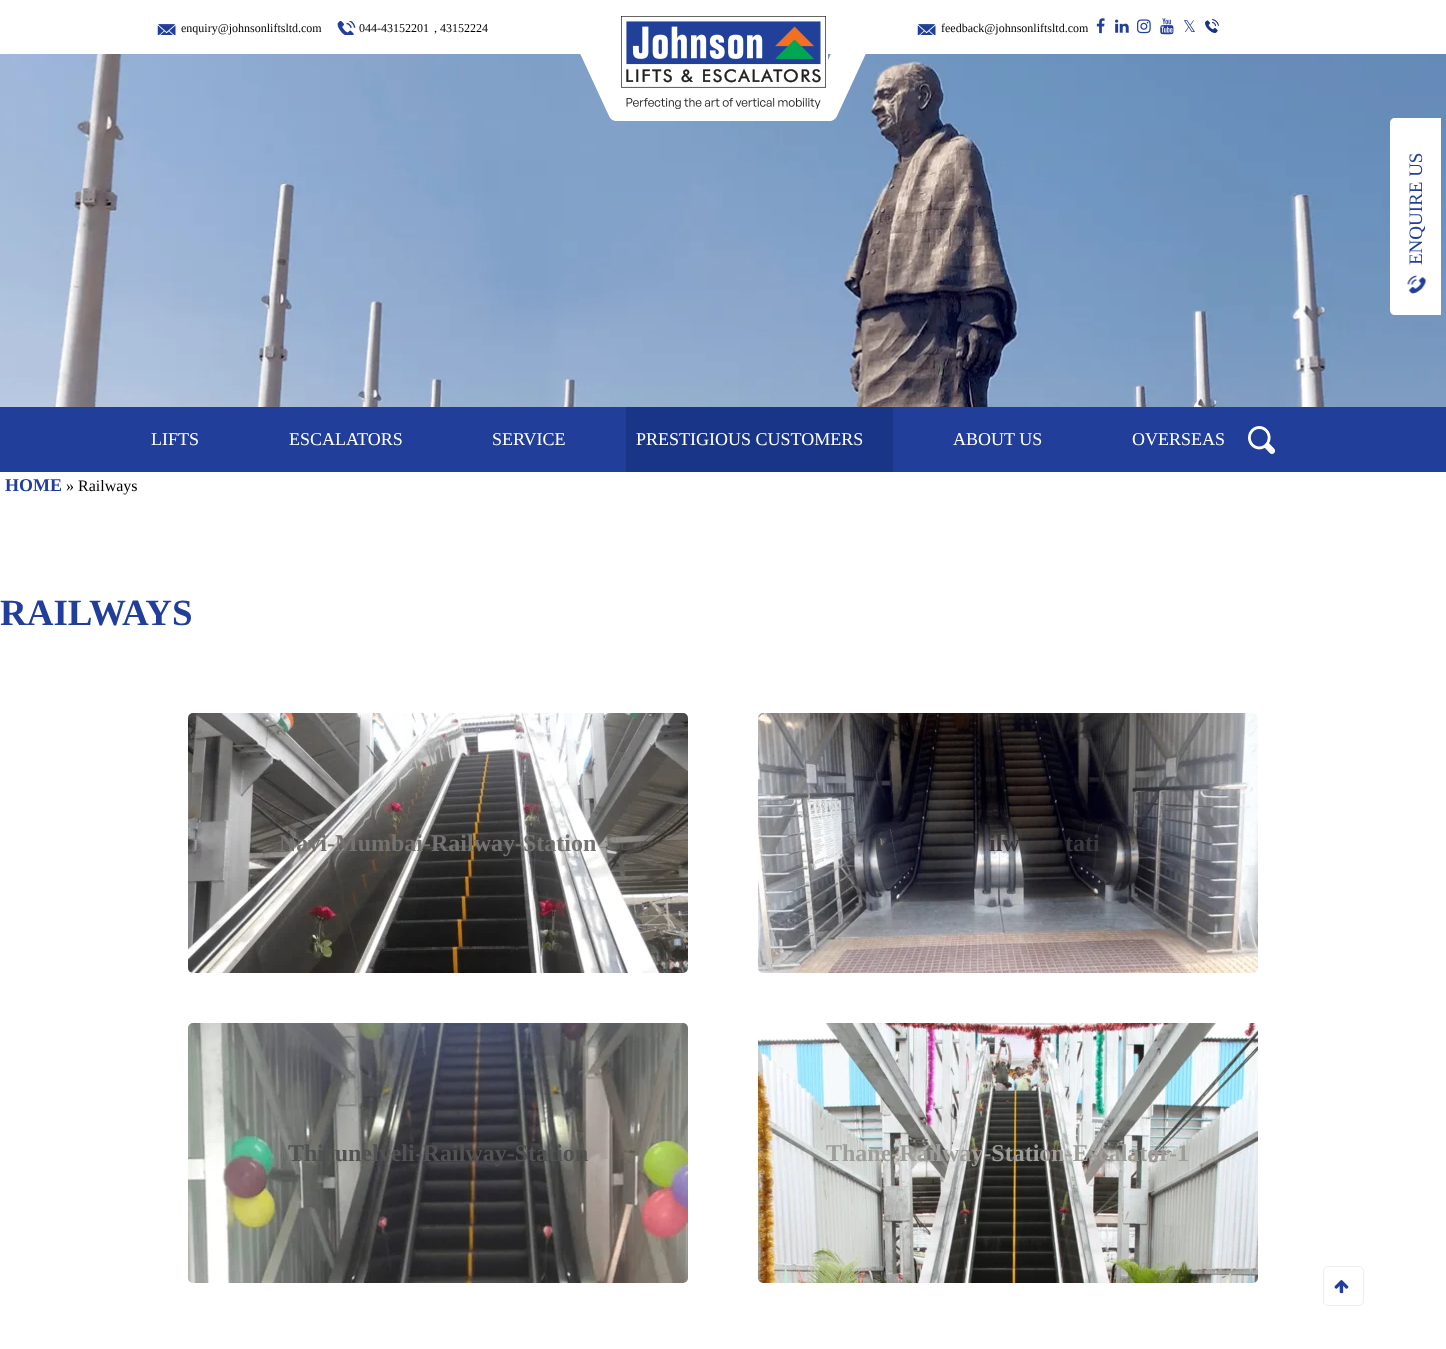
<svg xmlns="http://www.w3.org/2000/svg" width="1446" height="1349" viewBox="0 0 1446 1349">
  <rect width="100%" height="100%" fill="rgb(255,255,255)"/>
  <image x="157" y="24" width="19" height="11" href="pic1.png"/>
  <text x="181" y="32" font-family="Liberation Serif" font-size="12" fill="rgb(0,0,0)">enquiry@johnsonliftsltd.com</text>
  <image x="337" y="21" width="19" height="14" href="pic2.png"/>
  <g font-family="Liberation Serif" font-size="12" fill="rgb(0,0,0)">
    <text x="359" y="32">044-43152201</text>
    <text x="434" y="32">, 43152224</text>
  </g>
  <image x="0" y="54" width="1446" height="353" href="pic10.png"/>
  <path d="M565 21H600L646 121H616C614 121 610 119 609 116Z" fill="rgb(255,255,255)"/>
  <path d="M846 21H881L837 116C836 119 832 121 830 121H800Z" fill="rgb(255,255,255)"/>
  <rect x="615" y="54" width="213" height="67" fill="rgb(255,255,255)"/>
  <image x="621" y="16" width="205" height="93" href="pic3.png"/>
  <image x="917" y="24" width="19" height="11" href="pic1.png"/>
  <text x="941" y="32" font-family="Liberation Serif" font-size="12" fill="rgb(0,0,0)">feedback@johnsonliftsltd.com</text>
  <image x="1096" y="18" width="9" height="16" href="pic4.png"/>
  <image x="1115" y="19" width="14" height="14" href="pic5.png"/>
  <image x="1137" y="19" width="14" height="15" href="pic6.png"/>
  <image x="1160" y="18" width="14" height="17" href="pic7.png"/>
  <text x="1183" y="32" font-family="DejaVu Sans" font-size="16" fill="rgb(33,63,154)">𝕏</text>
  <image x="1205" y="19" width="14" height="14" href="pic8.png"/>
  <path d="M1390 310V123C1390 120 1392 118 1395 118H1441V315H1395C1392 315 1390 313 1390 310Z" fill="rgb(255,255,255)"/>
  <text x="1422" y="265" transform="rotate(-90 1422 265)" font-family="Liberation Serif" font-size="19" fill="rgb(33,63,154)">ENQUIRE US</text>
  <image x="1407" y="275" width="20" height="19" href="pic9.png"/>
  <rect x="0" y="407" width="1446" height="65" fill="rgb(33,63,154)"/>
  <g font-family="Liberation Serif" font-size="18" fill="rgb(255,255,255)">
    <text x="151" y="445">LIFTS</text>
    <text x="289" y="445">ESCALATORS</text>
    <text x="492" y="445">SERVICE</text>
  </g>
  <rect x="626" y="407" width="267" height="65" fill="rgb(25,53,136)"/>
  <g font-family="Liberation Serif" font-size="18" fill="rgb(255,255,255)">
    <text x="636" y="445">PRESTIGIOUS CUSTOMERS</text>
    <text x="953" y="445">ABOUT US</text>
    <text x="1132" y="445">OVERSEAS</text>
  </g>
  <image x="1248" y="426" width="27" height="28" href="pic11.png"/>
  <text x="5" y="491" font-family="Liberation Serif" font-size="18" font-weight="bold" fill="rgb(33,63,154)">HOME</text>
  <text x="66" y="491" font-family="Liberation Serif" font-size="16" fill="rgb(0,0,0)">» Railways</text>
  <text x="0" y="625" font-family="Liberation Serif" font-size="37" font-weight="bold" fill="rgb(33,63,154)">RAILWAYS</text>
  <image x="188" y="713" width="500" height="260" href="pic12.png"/>
  <text x="279" y="851" font-family="Liberation Serif" font-size="24" font-weight="bold" fill="rgb(117,115,113)">Navi-Mumbai-Railway-Station</text>
  <image x="758" y="713" width="500" height="260" href="pic13.png"/>
  <g font-family="Liberation Serif" font-size="24" font-weight="bold" fill="rgb(58,57,63)">
    <text x="989" y="851">ilw</text>
    <text x="1065" y="851">tati</text>
  </g>
  <image x="188" y="1023" width="500" height="260" href="pic14.png"/>
  <text x="288" y="1161" font-family="Liberation Serif" font-size="24" font-weight="bold" fill="rgb(82,82,83)">Thirunelveli-Railway-Station</text>
  <image x="758" y="1023" width="500" height="260" href="pic15.png"/>
  <text x="826" y="1161" font-family="Liberation Serif" font-size="24" font-weight="bold" fill="rgb(157,157,153)">Thane-Railway-Station-Escalator-1</text>
  <rect x="1323.5" y="1266.5" width="40" height="39" rx="4.5" fill="none" stroke="rgb(241,237,237)"/>
  <image x="1334" y="1280" width="15" height="14" href="pic16.png"/>
</svg>
